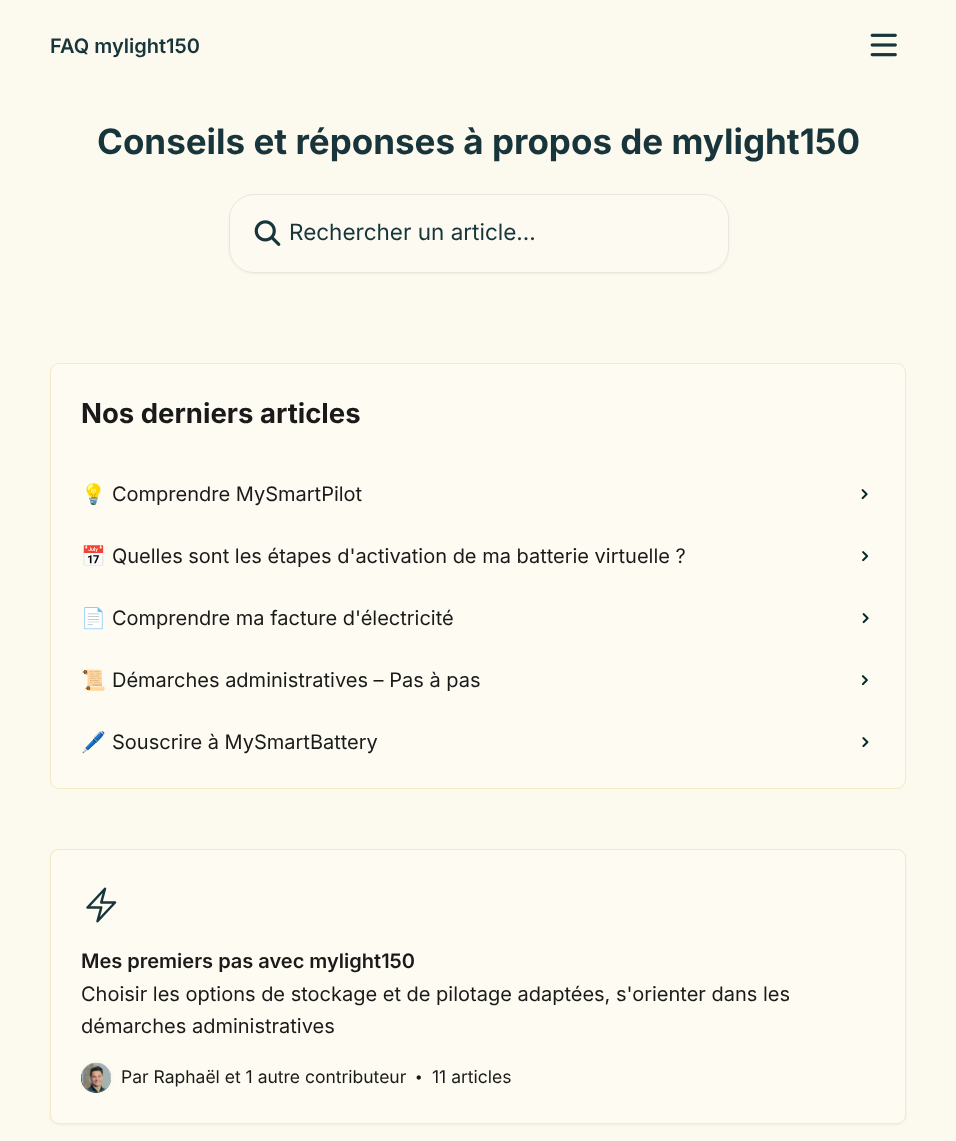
<svg xmlns="http://www.w3.org/2000/svg" width="956" height="1141" viewBox="0 0 956 1141">
  <defs>
    <clipPath id="clip1"><path d="M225 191H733V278H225ZM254 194H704C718 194 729 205 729 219V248C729 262 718 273 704 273H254C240 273 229 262 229 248V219C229 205 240 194 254 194Z" clip-rule="evenodd"/></clipPath>
  </defs>
  <rect width="100%" height="100%" fill="rgb(252,249,238)"/>
  <text x="50" y="53" font-family="Inter" font-size="20" font-weight="600" fill="rgb(23,53,58)">FAQ mylight150</text>
  <image x="870" y="33" width="27" height="24" href="pic1.png"/>
  <text x="97" y="154" font-family="Inter" font-size="35" font-weight="bold" fill="rgb(23,53,58)">Conseils et réponses à propos de mylight150</text>
  <g clip-path="url(#clip1)">
    <rect x="229" y="195" width="500" height="79" rx="25" fill="rgba(0,0,0,0.05)" filter="blur(1px)"/>
  </g>
  <rect x="229" y="194" width="500" height="79" rx="25" fill="rgba(255,255,255,0.2)"/>
  <rect x="229.5" y="194.5" width="499" height="78" rx="24.5" fill="none" stroke="rgba(0,0,0,0.08)"/>
  <image x="254" y="220" width="27" height="26" href="pic2.png"/>
  <text x="289" y="240" font-family="Inter" font-size="22.5" fill="rgb(23,53,58)">Rechercher un article...</text>
  <rect x="50.5" y="363.5" width="855" height="425" rx="8.5" fill="rgb(253,251,242)" stroke="rgb(244,234,195)"/>
  <text x="81" y="423" font-family="Inter" font-size="27.5" font-weight="bold" fill="rgb(26,26,26)">Nos derniers articles</text>
  <text x="81" y="501" font-family="Noto Color Emoji" font-size="20" fill="rgb(26,26,26)">💡</text>
  <text x="112" y="501" font-family="Inter" font-size="20" fill="rgb(26,26,26)">Comprendre MySmartPilot</text>
  <image x="861" y="489" width="7" height="11" href="pic3.png"/>
  <text x="81" y="563" font-family="Noto Color Emoji" font-size="20" fill="rgb(26,26,26)">📅</text>
  <text x="112" y="563" font-family="Inter" font-size="20" fill="rgb(26,26,26)">Quelles sont les étapes d'activation de ma batterie virtuelle ?</text>
  <image x="862" y="551" width="7" height="11" href="pic4.png"/>
  <text x="81" y="625" font-family="Noto Color Emoji" font-size="20" fill="rgb(26,26,26)">📄</text>
  <text x="112" y="625" font-family="Inter" font-size="20" fill="rgb(26,26,26)">Comprendre ma facture d'électricité</text>
  <image x="862" y="613" width="7" height="11" href="pic5.png"/>
  <text x="81" y="687" font-family="Noto Color Emoji" font-size="20" fill="rgb(26,26,26)">📜</text>
  <text x="112" y="687" font-family="Inter" font-size="20" fill="rgb(26,26,26)">Démarches administratives – Pas à pas</text>
  <image x="861" y="675" width="7" height="11" href="pic6.png"/>
  <text x="81" y="749" font-family="Noto Color Emoji" font-size="20" fill="rgb(26,26,26)">🖊️</text>
  <text x="112" y="749" font-family="Inter" font-size="20" fill="rgb(26,26,26)">Souscrire à MySmartBattery</text>
  <image x="862" y="737" width="7" height="11" href="pic7.png"/>
  <rect x="50" y="850" width="856" height="275" rx="9" fill="rgba(0,0,0,0.05)" filter="blur(1px)"/>
  <rect x="50.5" y="849.5" width="855" height="274" rx="8.5" fill="rgb(253,251,242)" stroke="rgb(244,234,195)"/>
  <image x="86" y="887" width="31" height="36" href="pic8.png"/>
  <text x="81" y="968" font-family="Inter" font-size="20" font-weight="600" fill="rgb(26,26,26)">Mes premiers pas avec mylight150</text>
  <g font-family="Inter" font-size="20" fill="rgb(26,26,26)">
    <text>
      <tspan x="81" y="1001">Choisir les options de stockage et de pilotage adaptées, s'orienter dans les</tspan>
      <tspan x="81" y="1033">démarches administratives</tspan>
    </text>
  </g>
  <circle cx="96.5" cy="1077.5" r="16" fill="none" stroke="rgb(252,249,238)" stroke-width="3"/>
  <circle cx="96" cy="1078" r="15" fill="rgb(0,41,37)"/>
  <image x="81" y="1062" width="30" height="31" href="pic9.png"/>
  <text x="121" y="1083" font-family="Inter" font-size="17.5" fill="rgb(26,26,26)">Par Raphaël et 1 autre contributeur</text>
  <image x="416" y="1075" width="5" height="5" href="pic10.png"/>
  <text x="432" y="1083" font-family="Inter" font-size="17.5" fill="rgb(26,26,26)">11 articles</text>
</svg>
